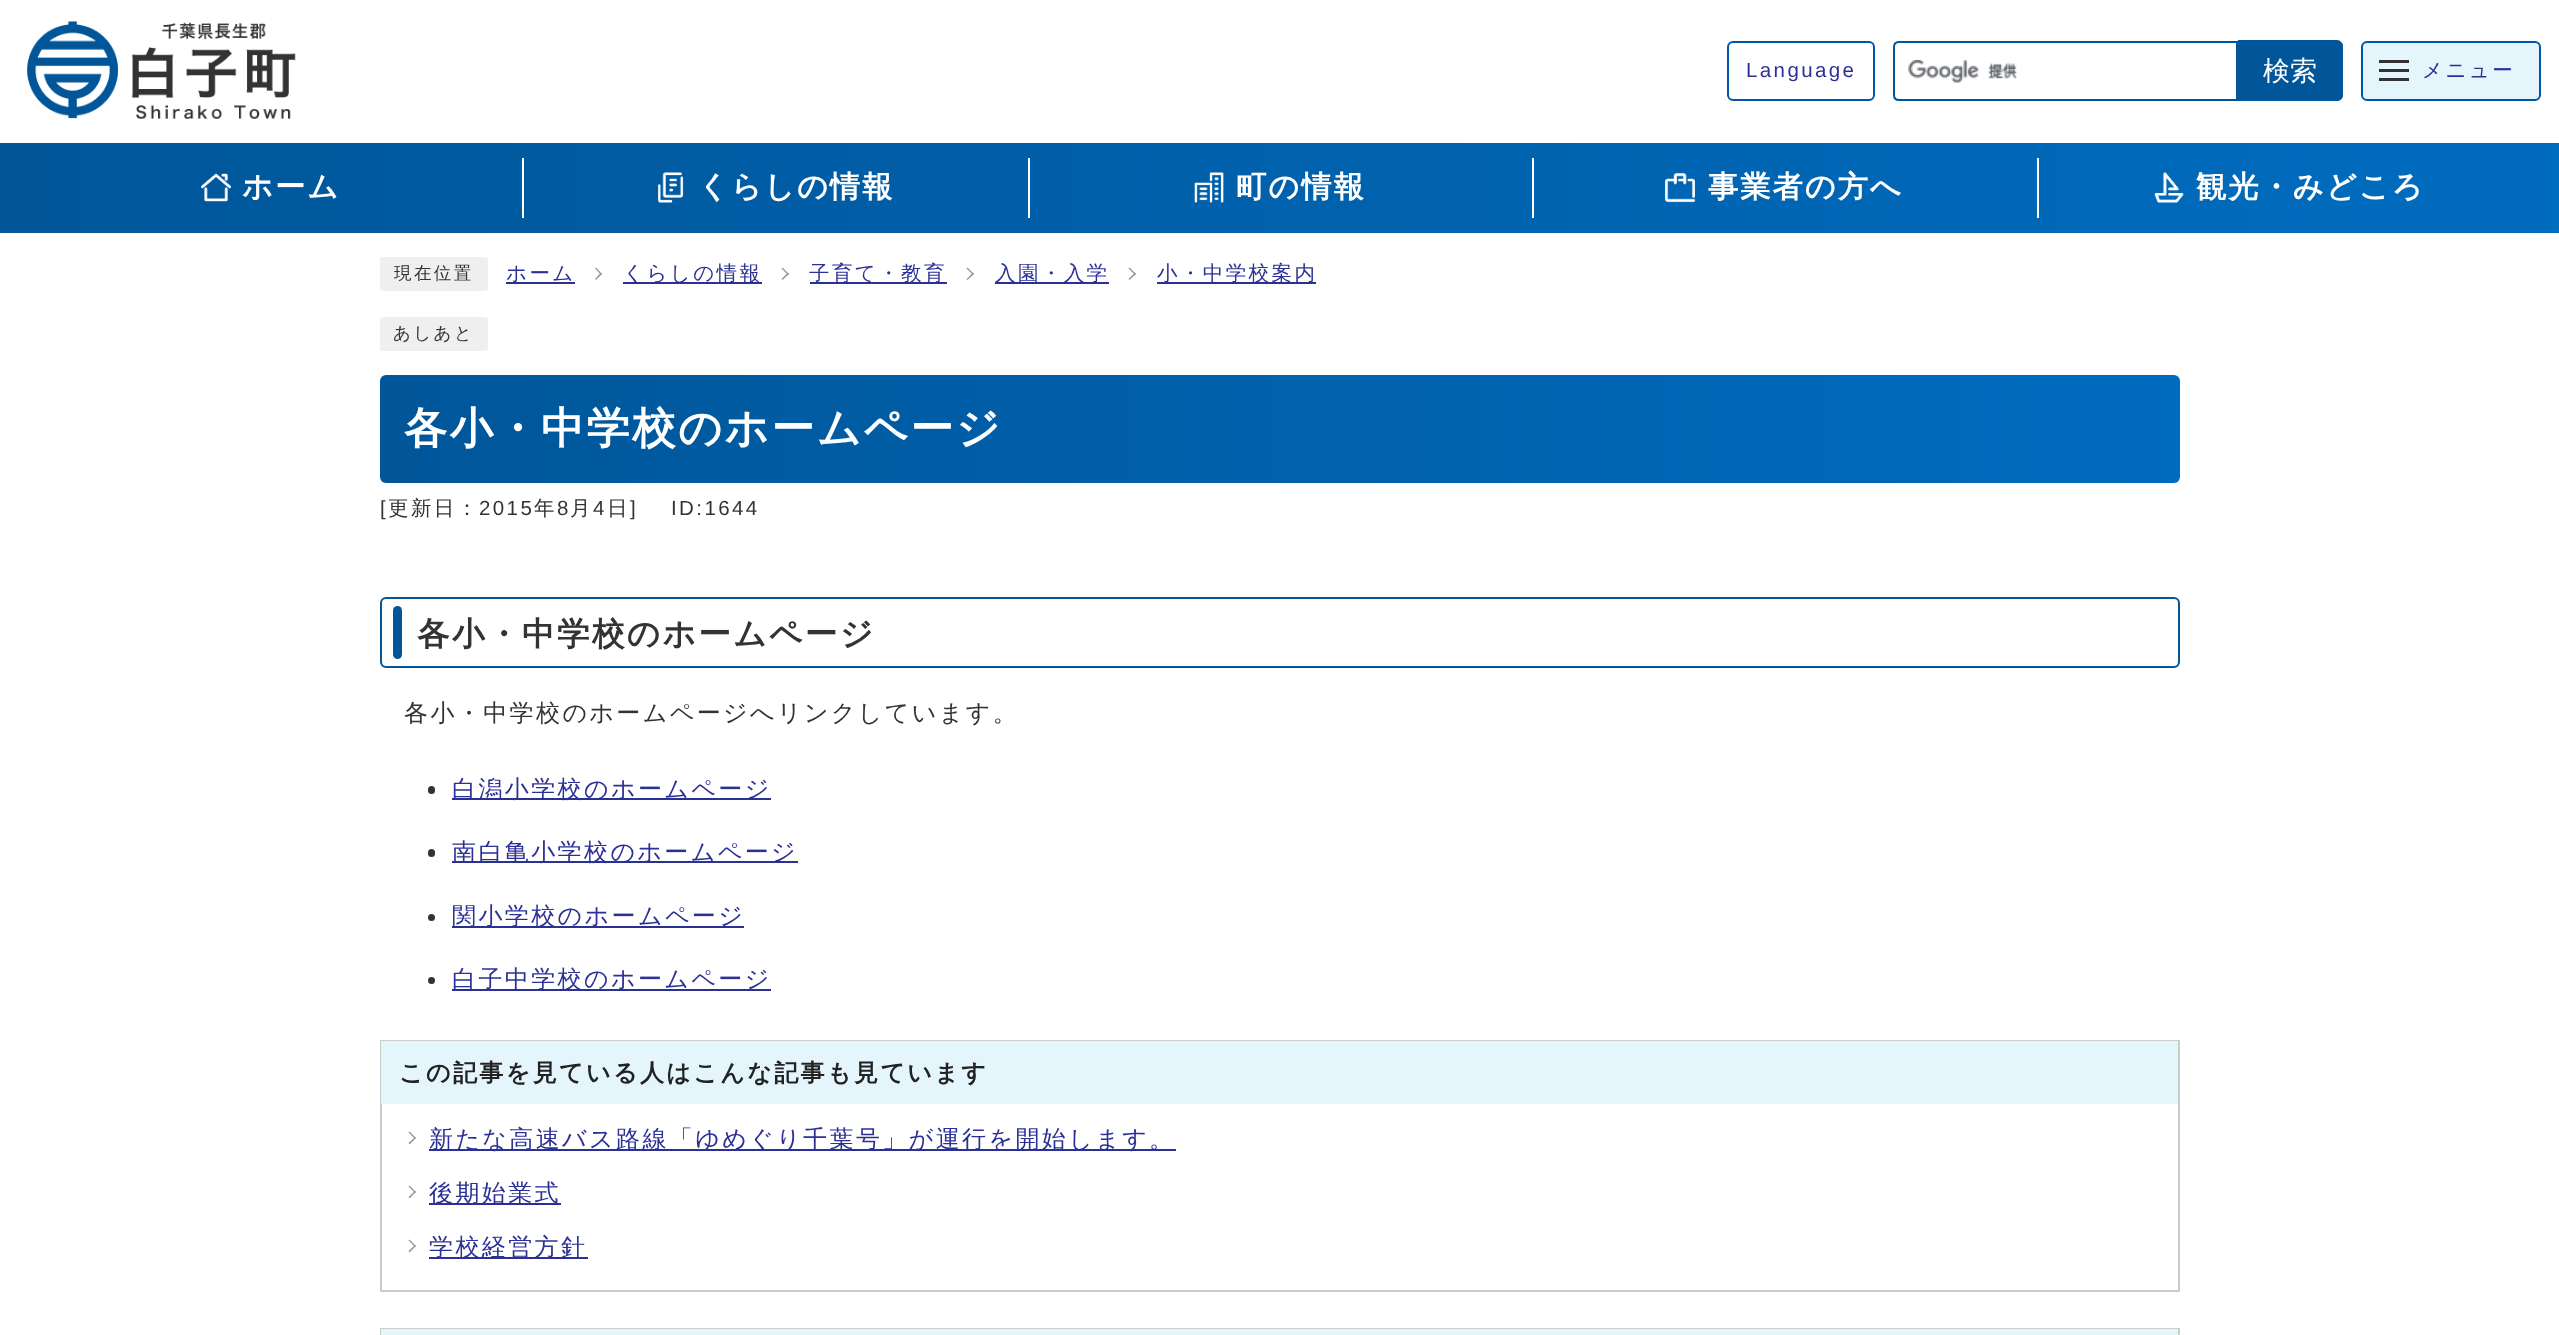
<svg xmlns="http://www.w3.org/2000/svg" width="2559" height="1335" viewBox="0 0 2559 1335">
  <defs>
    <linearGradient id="g1" gradientUnits="userSpaceOnUse" x1="0" y1="188" x2="2559" y2="187"><stop offset="0" stop-color="rgb(0,86,153)"/><stop offset="1" stop-color="rgb(0,108,191)"/></linearGradient>
    <linearGradient id="g2" gradientUnits="userSpaceOnUse" x1="380" y1="429" x2="2180" y2="429"><stop offset="0" stop-color="rgb(0,86,153)"/><stop offset="1" stop-color="rgb(0,108,191)"/></linearGradient>
  </defs>
  <rect width="100%" height="100%" fill="rgb(255,255,255)"/>
  <image x="27" y="21" width="269" height="98" href="pic1.png"/>
  <rect x="1728" y="42" width="146" height="58" rx="5" fill="none" stroke="rgb(0,85,166)" stroke-width="2"/>
  <text x="1746" y="77" font-family="Liberation Sans" font-size="20.5" letter-spacing="2.4" fill="rgb(43,48,149)">Language</text>
  <image x="1908" y="60" width="110" height="23" href="pic2.png"/>
  <path d="M1899 42H2237V100H1899C1896 100 1894 98 1894 95V47C1894 44 1896 42 1899 42Z" fill="none" stroke="rgb(0,86,153)" stroke-width="2"/>
  <path d="M2238 41H2337C2340.5 41 2343 43.5 2343 47V95C2343 98.5 2340.5 101 2337 101H2238Z" fill="rgb(0,86,153)"/>
  <path d="M2238 40H2337C2340 40 2343 43 2343 46V94C2343 98 2340 100 2337 100H2238ZM2238 42H2337C2339 42 2342 44 2342 46V94C2342 97 2339 99 2337 99H2238Z" fill="rgb(0,86,153)" fill-rule="evenodd"/>
  <text x="2263" y="80" font-family="WenQuanYi Zen Hei" font-size="27" font-weight="500" fill="rgb(255,255,255)">検索</text>
  <rect x="2362" y="42" width="178" height="58" rx="5" fill="rgb(228,245,252)" stroke="rgb(0,85,166)" stroke-width="2"/>
  <rect x="2379" y="69" width="30" height="3" fill="rgb(51,51,51)"/>
  <rect x="2379" y="60" width="30" height="3" fill="rgb(51,51,51)"/>
  <rect x="2379" y="78" width="30" height="3" fill="rgb(51,51,51)"/>
  <text x="2422" y="77" font-family="WenQuanYi Zen Hei" font-size="20.5" font-weight="500" letter-spacing="2.4" fill="rgb(43,48,149)">メニュー</text>
  <rect x="0" y="143" width="2559" height="90" fill="url(#g1)"/>
  <image x="201" y="173" width="30" height="29" href="pic3.png"/>
  <text x="242" y="197" font-family="WenQuanYi Zen Hei" font-size="30.25" font-weight="bold" letter-spacing="2" fill="rgb(255,255,255)">ホーム</text>
  <rect x="522" y="158" width="2" height="60" fill="rgb(255,255,255)"/>
  <image x="658" y="172" width="26" height="31" href="pic4.png"/>
  <text x="698" y="197" font-family="WenQuanYi Zen Hei" font-size="30.25" font-weight="bold" letter-spacing="2" fill="rgb(255,255,255)">くらしの情報</text>
  <rect x="1028" y="158" width="2" height="60" fill="rgb(255,255,255)"/>
  <image x="1194" y="172" width="30" height="31" href="pic5.png"/>
  <text x="1236" y="197" font-family="WenQuanYi Zen Hei" font-size="30.25" font-weight="bold" letter-spacing="2" fill="rgb(255,255,255)">町の情報</text>
  <rect x="1532" y="158" width="2" height="60" fill="rgb(255,255,255)"/>
  <image x="1665" y="173" width="30" height="30" href="pic6.png"/>
  <text x="1708" y="197" font-family="WenQuanYi Zen Hei" font-size="30.25" font-weight="bold" letter-spacing="2" fill="rgb(255,255,255)">事業者の方へ</text>
  <rect x="2037" y="158" width="2" height="60" fill="rgb(255,255,255)"/>
  <image x="2154" y="172" width="30" height="31" href="pic7.png"/>
  <text x="2196" y="197" font-family="WenQuanYi Zen Hei" font-size="30.25" font-weight="bold" letter-spacing="2" fill="rgb(255,255,255)">観光・みどころ</text>
  <rect x="380" y="257" width="108" height="34" rx="3" fill="rgb(239,239,239)"/>
  <text x="394" y="279" font-family="WenQuanYi Zen Hei" font-size="17.5" font-weight="500" letter-spacing="2.4" fill="rgb(51,51,51)">現在位置</text>
  <rect x="506" y="282" width="69" height="2" fill="rgb(43,48,149)"/>
  <text x="506" y="280" font-family="WenQuanYi Zen Hei" font-size="20.5" font-weight="500" letter-spacing="2.4" fill="rgb(43,48,149)">ホーム</text>
  <path d="M595 268.5L596 267.5L602 274L601 275Z" fill="rgb(153,153,153)"/>
  <path d="M595 279L601 272.5L602 274L596 280Z" fill="rgb(153,153,153)"/>
  <rect x="623" y="282" width="139" height="2" fill="rgb(43,48,149)"/>
  <text x="623" y="280" font-family="WenQuanYi Zen Hei" font-size="20.5" font-weight="500" letter-spacing="2.4" fill="rgb(43,48,149)">くらしの情報</text>
  <path d="M781.5 268.5L782.5 267.5L789 274L788 275Z" fill="rgb(153,153,153)"/>
  <path d="M781.5 279L788 272.5L789 274L782.5 280Z" fill="rgb(153,153,153)"/>
  <rect x="810" y="282" width="137" height="2" fill="rgb(43,48,149)"/>
  <text x="809" y="280" font-family="WenQuanYi Zen Hei" font-size="20.5" font-weight="500" letter-spacing="2.4" fill="rgb(43,48,149)">子育て・教育</text>
  <path d="M966.5 268.5L967.5 267.5L974 274L973 275Z" fill="rgb(153,153,153)"/>
  <path d="M966.5 279L973 272.5L974 274L967.5 280Z" fill="rgb(153,153,153)"/>
  <rect x="995" y="282" width="114" height="2" fill="rgb(43,48,149)"/>
  <text x="995" y="280" font-family="WenQuanYi Zen Hei" font-size="20.5" font-weight="500" letter-spacing="2.4" fill="rgb(43,48,149)">入園・入学</text>
  <path d="M1128.5 268.5L1129.5 267.5L1136 274L1135 275Z" fill="rgb(153,153,153)"/>
  <path d="M1128.5 279L1135 272.5L1136 274L1129.5 280Z" fill="rgb(153,153,153)"/>
  <rect x="1157" y="282" width="159" height="2" fill="rgb(43,48,149)"/>
  <text x="1157" y="280" font-family="WenQuanYi Zen Hei" font-size="20.5" font-weight="500" letter-spacing="2.4" fill="rgb(43,48,149)">小・中学校案内</text>
  <rect x="380" y="317" width="108" height="34" rx="3" fill="rgb(239,239,239)"/>
  <text x="393" y="339" font-family="WenQuanYi Zen Hei" font-size="17.5" font-weight="500" letter-spacing="2.4" fill="rgb(51,51,51)">あしあと</text>
  <rect x="380" y="375" width="1800" height="108" rx="6" fill="url(#g2)"/>
  <text x="404" y="443" font-family="WenQuanYi Zen Hei" font-size="43.25" font-weight="bold" letter-spacing="2.4" fill="rgb(255,255,255)">各小・中学校のホームページ</text>
  <text x="380" y="515" font-family="Liberation Sans" font-size="20.5" letter-spacing="2.4" fill="rgb(51,51,51)">[</text>
  <text x="388" y="515" font-family="WenQuanYi Zen Hei" font-size="20.5" font-weight="500" letter-spacing="2.4" fill="rgb(51,51,51)">更新日：</text>
  <text x="479" y="515" font-family="Liberation Sans" font-size="20.5" letter-spacing="2.4" fill="rgb(51,51,51)">2015</text>
  <text x="534" y="515" font-family="WenQuanYi Zen Hei" font-size="20.5" font-weight="500" letter-spacing="2.4" fill="rgb(51,51,51)">年</text>
  <text x="557" y="515" font-family="Liberation Sans" font-size="20.5" letter-spacing="2.4" fill="rgb(51,51,51)">8</text>
  <text x="570" y="515" font-family="WenQuanYi Zen Hei" font-size="20.5" font-weight="500" letter-spacing="2.4" fill="rgb(51,51,51)">月</text>
  <text x="593" y="515" font-family="Liberation Sans" font-size="20.5" letter-spacing="2.4" fill="rgb(51,51,51)">4</text>
  <text x="607" y="515" font-family="WenQuanYi Zen Hei" font-size="20.5" font-weight="500" letter-spacing="2.4" fill="rgb(51,51,51)">日</text>
  <g font-family="Liberation Sans" font-size="20.5" letter-spacing="2.4" fill="rgb(51,51,51)">
    <text x="630" y="515">]</text>
    <text x="671" y="515">ID:1644</text>
  </g>
  <rect x="381" y="598" width="1798" height="69" rx="5" fill="none" stroke="rgb(0,86,153)" stroke-width="2"/>
  <rect x="393" y="606" width="9" height="53" rx="4.5" fill="rgb(0,86,153)"/>
  <text x="417" y="645" font-family="WenQuanYi Zen Hei" font-size="32.6" font-weight="bold" letter-spacing="2.4" fill="rgb(51,51,51)">各小・中学校のホームページ</text>
  <text x="404" y="721" font-family="WenQuanYi Zen Hei" font-size="24" font-weight="500" letter-spacing="2.4" fill="rgb(51,51,51)">各小・中学校のホームページへリンクしています。</text>
  <rect x="428" y="786" width="7" height="8" rx="3.5" fill="rgb(51,51,51)"/>
  <rect x="452" y="798" width="319" height="2" fill="rgb(43,48,149)"/>
  <text x="452" y="797" font-family="WenQuanYi Zen Hei" font-size="24" font-weight="500" letter-spacing="2.4" fill="rgb(43,48,149)">白潟小学校のホームページ</text>
  <rect x="428" y="849" width="7" height="8" rx="3.5" fill="rgb(51,51,51)"/>
  <rect x="452" y="861" width="346" height="2" fill="rgb(43,48,149)"/>
  <text x="452" y="860" font-family="WenQuanYi Zen Hei" font-size="24" font-weight="500" letter-spacing="2.4" fill="rgb(43,48,149)">南白亀小学校のホームページ</text>
  <circle cx="431.5" cy="917.5" r="3.5" fill="rgb(51,51,51)"/>
  <rect x="452" y="926" width="292" height="2" fill="rgb(43,48,149)"/>
  <text x="452" y="924" font-family="WenQuanYi Zen Hei" font-size="24" font-weight="500" letter-spacing="2.4" fill="rgb(43,48,149)">関小学校のホームページ</text>
  <circle cx="431.5" cy="980.5" r="3.5" fill="rgb(51,51,51)"/>
  <rect x="452" y="989" width="319" height="2" fill="rgb(43,48,149)"/>
  <text x="452" y="987" font-family="WenQuanYi Zen Hei" font-size="24" font-weight="500" letter-spacing="2.4" fill="rgb(43,48,149)">白子中学校のホームページ</text>
  <rect x="381" y="1041" width="1798" height="250" fill="none" stroke="rgb(204,204,204)" stroke-width="2"/>
  <rect x="381" y="1041" width="1797" height="63" fill="rgb(228,245,252)"/>
  <text x="399" y="1081" font-family="WenQuanYi Zen Hei" font-size="24" font-weight="bold" letter-spacing="2.4" fill="rgb(34,34,34)">この記事を見ている人はこんな記事も見ています</text>
  <path d="M408.5 1132.5L409.5 1131.5L416 1138L415 1139Z" fill="rgb(153,153,153)"/>
  <path d="M408.5 1143L415 1137L416 1138L409.5 1144.5Z" fill="rgb(153,153,153)"/>
  <rect x="429" y="1149" width="747" height="2" fill="rgb(43,48,149)"/>
  <text x="429" y="1147" font-family="WenQuanYi Zen Hei" font-size="24" font-weight="500" letter-spacing="2.4" fill="rgb(43,48,149)">新たな高速バス路線「ゆめぐり千葉号」が運行を開始します。</text>
  <path d="M408.5 1186.5L409.5 1185.5L416 1192L415 1193Z" fill="rgb(153,153,153)"/>
  <path d="M408.5 1197L415 1191L416 1192L409.5 1198.5Z" fill="rgb(153,153,153)"/>
  <rect x="429" y="1203" width="132" height="2" fill="rgb(43,48,149)"/>
  <text x="429" y="1201" font-family="WenQuanYi Zen Hei" font-size="24" font-weight="500" letter-spacing="2.4" fill="rgb(43,48,149)">後期始業式</text>
  <path d="M408.5 1240.5L409.5 1239.5L416 1246L415 1247Z" fill="rgb(153,153,153)"/>
  <path d="M408.5 1251L415 1245L416 1246L409.5 1252.5Z" fill="rgb(153,153,153)"/>
  <rect x="429" y="1257" width="159" height="2" fill="rgb(43,48,149)"/>
  <text x="429" y="1255" font-family="WenQuanYi Zen Hei" font-size="24" font-weight="500" letter-spacing="2.4" fill="rgb(43,48,149)">学校経営方針</text>
  <rect x="381" y="1329" width="1798" height="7" fill="none" stroke="rgb(204,204,204)" stroke-width="2"/>
  <rect x="381" y="1329" width="1797" height="6" fill="rgb(228,245,252)"/>
</svg>
